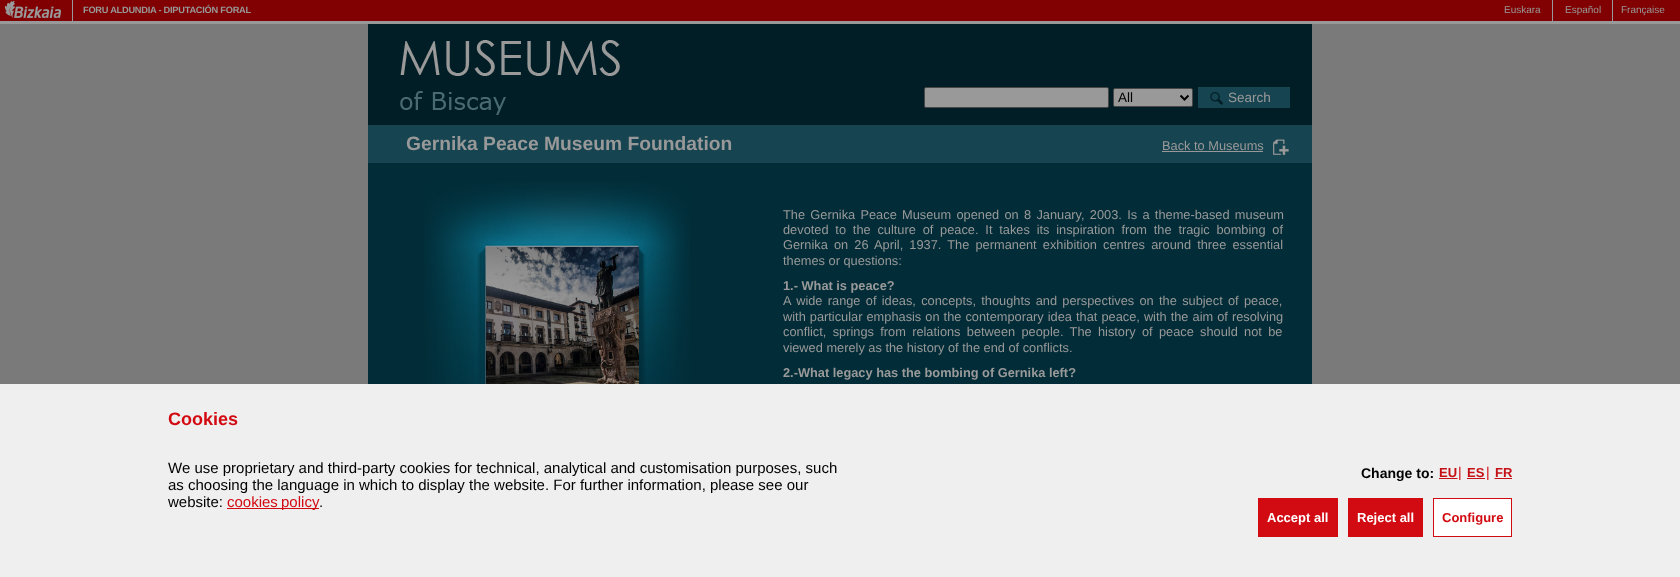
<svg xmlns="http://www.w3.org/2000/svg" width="1680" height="577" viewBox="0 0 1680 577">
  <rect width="100%" height="100%" fill="rgb(122,122,122)"/>
  <rect x="0" y="21" width="1680" height="3" fill="rgb(153,153,153)"/>
  <rect x="0" y="0" width="1680" height="21" fill="rgb(129,0,2)"/>
  <image x="5" y="1" width="56" height="17" href="pic1.png"/>
  <rect x="72" y="0" width="1" height="24" fill="rgb(153,153,153)"/>
  <text x="83" y="13" font-family="Liberation Sans" font-size="9.25" font-weight="bold" letter-spacing="-0.25" fill="rgb(153,153,153)">FORU ALDUNDIA - DIPUTACIÓN FORAL</text>
  <text x="1504" y="13" font-family="Liberation Sans" font-size="10" fill="rgb(153,153,153)">Euskara</text>
  <rect x="1552" y="0" width="1" height="21" fill="rgb(153,153,153)"/>
  <text x="1565" y="13" font-family="Liberation Sans" font-size="10" fill="rgb(153,153,153)">Español</text>
  <rect x="1612" y="0" width="1" height="21" fill="rgb(153,153,153)"/>
  <text x="1621" y="13" font-family="Liberation Sans" font-size="10" fill="rgb(153,153,153)">Française</text>
  <rect x="368" y="24" width="944" height="101" fill="rgb(1,30,38)"/>
  <image x="400" y="40" width="220" height="75" href="pic2.png"/>
  <rect x="924.5" y="87.5" width="184" height="20" rx="1.5" fill="rgb(153,153,153)" stroke="rgb(71,71,71)"/>
  <rect x="1113.5" y="88.5" width="79" height="18" rx="1.5" fill="rgb(153,153,153)" stroke="rgb(71,71,71)"/>
  <path d="M1180.5 95.5L1184.5 99.5L1188.5 95.5" fill="none" stroke="rgb(0,0,0)" stroke-width="2"/>
  <text x="1118" y="102" font-family="Liberation Sans" font-size="13.5" fill="rgb(0,0,0)">All</text>
  <rect x="1198" y="87" width="92" height="21" fill="rgb(22,68,80)"/>
  <image x="1210" y="92" width="13" height="13" href="pic3.png"/>
  <text x="1228" y="102" font-family="Liberation Sans" font-size="13.5" fill="rgb(153,153,153)">Search</text>
  <rect x="368" y="163" width="944" height="221" fill="rgb(2,45,56)"/>
  <rect x="368" y="125" width="944" height="38" fill="rgb(22,68,80)"/>
  <text x="406" y="150" font-family="Liberation Sans" font-size="19.25" font-weight="bold" fill="rgb(153,153,153)">Gernika Peace Museum Foundation</text>
  <image x="1273" y="139" width="16" height="16" href="pic4.png"/>
  <text x="1162" y="150" font-family="Liberation Sans" font-size="12.8" fill="rgb(153,153,153)">Back to Museums</text>
  <rect x="1162" y="151" width="101" height="1" fill="rgb(153,153,153)"/>
  <image x="424" y="181" width="266" height="203" href="pic5.png"/>
  <image x="486" y="247" width="153" height="137" href="pic6.png"/>
  <g font-family="Liberation Sans" font-size="12.8" fill="rgb(153,153,153)">
    <text>
      <tspan x="783" y="219" word-spacing="1.75">The Gernika Peace Museum opened on 8 January, 2003. Is a theme-based museum</tspan>
      <tspan x="783" y="234" word-spacing="3.25">devoted to the culture of peace. It takes its inspiration from the tragic bombing of</tspan>
      <tspan x="783" y="249" word-spacing="2.6">Gernika on 26 April, 1937. The permanent exhibition centres around three essential</tspan>
      <tspan x="783" y="265">themes or questions:</tspan>
    </text>
  </g>
  <text x="783" y="290" font-family="Liberation Sans" font-size="12.8" font-weight="bold" fill="rgb(153,153,153)">1.- What is peace?</text>
  <g font-family="Liberation Sans" font-size="12.8" fill="rgb(153,153,153)">
    <text>
      <tspan x="783" y="305" word-spacing="1.75">A wide range of ideas, concepts, thoughts and perspectives on the subject of peace,</tspan>
      <tspan x="783" y="321" word-spacing="0.5">with particular emphasis on the contemporary idea that peace, with the aim of resolving</tspan>
      <tspan x="783" y="336" word-spacing="2.75">conflict, springs from relations between people. The history of peace should not be</tspan>
      <tspan x="783" y="352">viewed merely as the history of the end of conflicts.</tspan>
    </text>
  </g>
  <text x="783" y="377" font-family="Liberation Sans" font-size="12.8" font-weight="bold" fill="rgb(153,153,153)">2.-What legacy has the bombing of Gernika left?</text>
  <rect x="0" y="384" width="1680" height="193" fill="rgb(239,239,239)"/>
  <text x="168" y="425" font-family="Liberation Sans" font-size="18" font-weight="bold" fill="rgb(210,10,17)">Cookies</text>
  <g font-family="Liberation Sans" font-size="15" fill="rgb(0,0,0)">
    <text>
      <tspan x="168" y="473">We use proprietary and third-party cookies for technical, analytical and customisation purposes, such</tspan>
      <tspan x="168" y="490">as choosing the language in which to display the website. For further information, please see our</tspan>
      <tspan x="168" y="507">website:</tspan>
    </text>
  </g>
  <rect x="227" y="508" width="92" height="1" fill="rgb(210,10,17)"/>
  <text x="227" y="507" word-spacing="-1" font-family="Liberation Sans" font-size="15" fill="rgb(210,10,17)">cookies policy</text>
  <text x="319" y="507" font-family="Liberation Sans" font-size="15" fill="rgb(0,0,0)">.</text>
  <text x="1361" y="478" font-family="Liberation Sans" font-size="14" font-weight="bold" fill="rgb(0,0,0)">Change to:</text>
  <text x="1439" y="477" font-family="Liberation Sans" font-size="13" font-weight="bold" fill="rgb(197,16,21)">EU</text>
  <path d="M1439 478.5H1457.5" fill="none" stroke="rgb(197,16,21)" stroke-dasharray="1 1"/>
  <rect x="1439" y="478" width="18" height="1" fill="rgb(197,16,21)"/>
  <text x="1458" y="477" font-family="Liberation Sans" font-size="14" fill="rgb(210,10,17)">|</text>
  <text x="1467" y="477" font-family="Liberation Sans" font-size="13" font-weight="bold" fill="rgb(197,16,21)">ES</text>
  <rect x="1467" y="478" width="18" height="1" fill="rgb(197,16,21)"/>
  <text x="1486" y="477" font-family="Liberation Sans" font-size="14" fill="rgb(210,10,17)">|</text>
  <text x="1495" y="477" font-family="Liberation Sans" font-size="13" font-weight="bold" fill="rgb(197,16,21)">FR</text>
  <path d="M1494.5 478.5H1512" fill="none" stroke="rgb(197,16,21)" stroke-dasharray="1 1"/>
  <rect x="1495" y="478" width="17" height="1" fill="rgb(197,16,21)"/>
  <rect x="1258" y="498" width="80" height="39" fill="rgb(210,10,17)"/>
  <text x="1267" y="522" font-family="Liberation Sans" font-size="13" font-weight="bold" fill="rgb(255,255,255)">Accept all</text>
  <rect x="1348" y="498" width="75" height="39" fill="rgb(210,10,17)"/>
  <text x="1357" y="522" font-family="Liberation Sans" font-size="13" font-weight="bold" fill="rgb(255,255,255)">Reject all</text>
  <rect x="1433.5" y="498.5" width="78" height="38" fill="rgb(255,255,255)" stroke="rgb(210,10,17)"/>
  <text x="1442" y="522" font-family="Liberation Sans" font-size="13" font-weight="bold" fill="rgb(210,10,17)">Configure</text>
</svg>
